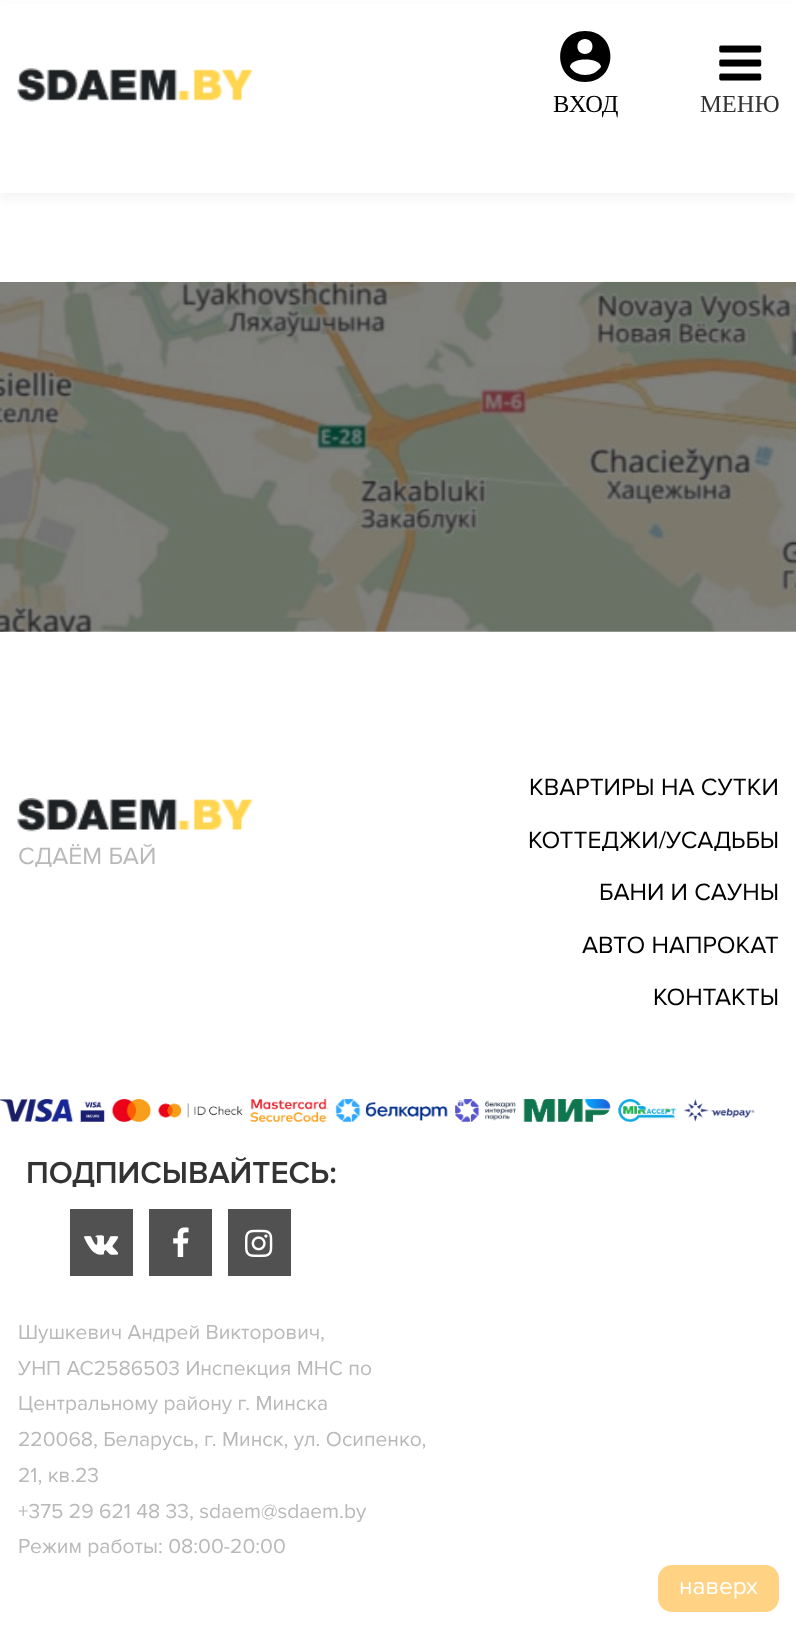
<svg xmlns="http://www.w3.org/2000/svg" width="796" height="1628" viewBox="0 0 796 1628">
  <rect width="100%" height="100%" fill="rgb(255,255,255)"/>
  <rect x="0" y="7" width="796" height="193" fill="rgba(50,50,50,0.05)" filter="blur(4.5px)"/>
  <rect x="0" y="4" width="796" height="189" fill="rgb(255,255,255)"/>
  <image x="17" y="68" width="235" height="34" href="pic1.png"/>
  <text x="553" y="112" font-family="Liberation Serif" font-size="24.5" fill="rgb(0,0,0)">ВХОД</text>
  <path d="M585 31C552 31 552 82 585 82C619 82 619 31 585 31ZM585 39C595 39 595 54 585 54C575 54 575 39 585 39ZM585 75C579 75 573 72 570 67C570 57 601 57 601 67C597 72 592 75 585 75Z" fill="rgb(0,0,0)"/>
  <image x="719" y="45" width="43" height="36" href="pic2.png"/>
  <text x="700" y="112" font-family="Liberation Serif" font-size="24.5" fill="rgb(51,51,51)">МЕНЮ</text>
  <image x="0" y="281" width="796" height="351" href="pic3.png"/>
  <image x="17" y="798" width="235" height="34" href="pic4.png"/>
  <text x="18" y="864" font-family="Proxima Nova" font-size="24.5" fill="rgb(185,185,185)">СДАЁМ БАЙ</text>
  <g font-family="Proxima Nova" font-size="24.5" fill="rgb(0,0,0)">
    <text x="529" y="795">КВАРТИРЫ НА СУТКИ</text>
    <text x="528" y="848">КОТТЕДЖИ/УСАДЬБЫ</text>
    <text x="599" y="900">БАНИ И САУНЫ</text>
    <text x="582" y="953">АВТО НАПРОКАТ</text>
    <text x="653" y="1005">КОНТАКТЫ</text>
  </g>
  <image x="0" y="1099" width="755" height="23" href="pic5.png"/>
  <text x="26" y="1183" font-family="Proxima Nova" font-size="31.5" font-weight="600" fill="rgb(51,51,51)">ПОДПИСЫВАЙТЕСЬ:</text>
  <rect x="70" y="1209" width="63" height="67" fill="rgb(81,81,81)"/>
  <image x="84" y="1235" width="35" height="20" href="pic6.png"/>
  <rect x="149" y="1209" width="63" height="67" fill="rgb(81,81,81)"/>
  <image x="173" y="1227" width="16" height="30" href="pic7.png"/>
  <rect x="228" y="1209" width="63" height="67" fill="rgb(81,81,81)"/>
  <image x="245" y="1229" width="28" height="28" href="pic8.png"/>
  <g font-family="Proxima Nova" font-size="21" fill="rgb(185,185,185)">
    <text>
      <tspan x="18" y="1339">Шушкевич Андрей Викторович,</tspan>
      <tspan x="18" y="1375">УНП АС2586503 Инспекция МНС по</tspan>
      <tspan x="18" y="1410">Центральному району г. Минска</tspan>
      <tspan x="18" y="1446">220068, Беларусь, г. Минск, ул. Осипенко,</tspan>
      <tspan x="18" y="1482">21, кв.23</tspan>
      <tspan x="18" y="1518">+375 29 621 48 33, sdaem@sdaem.by</tspan>
      <tspan x="18" y="1553">Режим работы: 08:00-20:00</tspan>
    </text>
  </g>
  <rect x="658" y="1565" width="121" height="47" rx="14" fill="rgb(255,211,131)"/>
  <text x="679" y="1594" font-family="Proxima Nova" font-size="24.5" fill="rgb(255,255,255)">наверх</text>
</svg>
